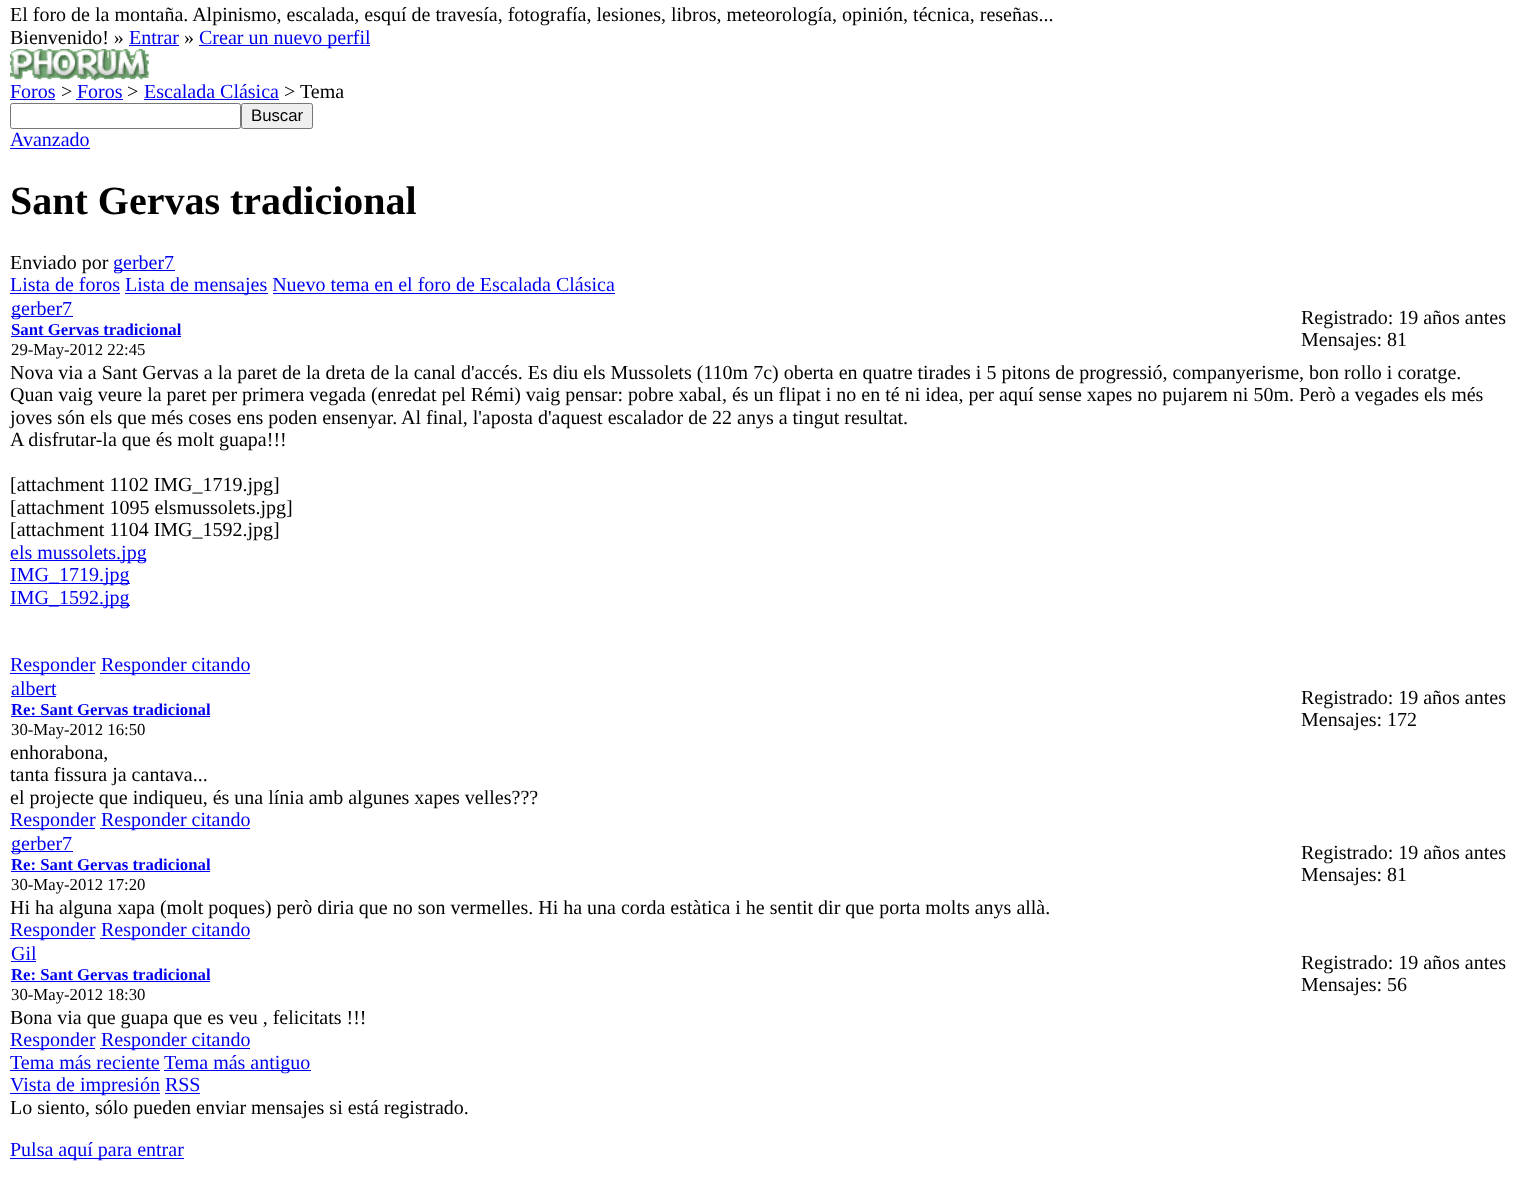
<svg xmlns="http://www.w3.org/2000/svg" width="1517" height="1177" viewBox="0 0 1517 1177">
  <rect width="100%" height="100%" fill="rgb(255,255,255)"/>
  <g font-family="Liberation Serif" font-size="20" fill="rgb(0,0,0)">
    <text>
      <tspan x="10" y="21">El foro de la montaña. Alpinismo, escalada, esquí de travesía, fotografía, lesiones, libros, meteorología, opinión, técnica, reseñas...</tspan>
      <tspan x="10" y="44">Bienvenido! »</tspan>
    </text>
  </g>
  <text x="129" y="44" font-family="Liberation Serif" font-size="20" fill="rgb(0,0,238)">Entrar</text>
  <rect x="129" y="45" width="50" height="1" fill="rgb(0,0,238)"/>
  <text x="184" y="44" font-family="Liberation Serif" font-size="20" fill="rgb(0,0,0)">»</text>
  <rect x="199" y="45" width="171" height="1" fill="rgb(0,0,238)"/>
  <text x="199" y="44" font-family="Liberation Serif" font-size="20" fill="rgb(0,0,238)">Crear un nuevo perfil</text>
  <image x="10" y="49" width="139" height="32" href="pic1.png"/>
  <text x="10" y="98" font-family="Liberation Serif" font-size="20" fill="rgb(0,0,238)">Foros</text>
  <rect x="10" y="99" width="45" height="1" fill="rgb(0,0,238)"/>
  <text x="61" y="98" font-family="Liberation Serif" font-size="20" fill="rgb(0,0,0)">&gt;</text>
  <text x="77" y="98" font-family="Liberation Serif" font-size="20" fill="rgb(0,0,238)">Foros</text>
  <rect x="76" y="99" width="47" height="1" fill="rgb(0,0,238)"/>
  <text x="127" y="98" font-family="Liberation Serif" font-size="20" fill="rgb(0,0,0)">&gt;</text>
  <text x="144" y="98" font-family="Liberation Serif" font-size="20" fill="rgb(0,0,238)">Escalada Clásica</text>
  <rect x="144" y="99" width="135" height="1" fill="rgb(0,0,238)"/>
  <g font-family="Liberation Serif" font-size="20" fill="rgb(0,0,0)">
    <text x="284" y="98">&gt;</text>
    <text x="300" y="98">Tema</text>
  </g>
  <rect x="10.5" y="103.5" width="230" height="25" rx="2" fill="none" stroke="rgb(118,118,118)"/>
  <rect x="241.5" y="103.5" width="71" height="25" rx="2" fill="rgb(239,239,239)" stroke="rgb(118,118,118)"/>
  <text x="251" y="121" font-family="Liberation Sans" font-size="16.75" fill="rgb(0,0,0)">Buscar</text>
  <text x="10" y="146" font-family="Liberation Serif" font-size="20" fill="rgb(0,0,238)">Avanzado</text>
  <rect x="10" y="148" width="80" height="1" fill="rgb(0,0,238)"/>
  <text x="10" y="214" font-family="Liberation Serif" font-size="40" font-weight="bold" fill="rgb(0,0,0)">Sant Gervas tradicional</text>
  <text x="10" y="269" font-family="Liberation Serif" font-size="20" fill="rgb(0,0,0)">Enviado por</text>
  <rect x="114" y="270" width="61" height="1" fill="rgb(0,0,238)"/>
  <g font-family="Liberation Serif" font-size="20" fill="rgb(0,0,238)">
    <text x="113" y="269">gerber7</text>
    <text x="10" y="291">Lista de foros</text>
  </g>
  <rect x="10" y="293" width="110" height="1" fill="rgb(0,0,238)"/>
  <rect x="125" y="293" width="143" height="1" fill="rgb(0,0,238)"/>
  <text x="125" y="291" font-family="Liberation Serif" font-size="20" fill="rgb(0,0,238)">Lista de mensajes Nuevo tema en el foro de Escalada Clásica</text>
  <rect x="273" y="293" width="342" height="1" fill="rgb(0,0,238)"/>
  <rect x="11" y="316" width="62" height="1" fill="rgb(0,0,238)"/>
  <text x="11" y="315" font-family="Liberation Serif" font-size="20" fill="rgb(0,0,238)">gerber7</text>
  <text x="11" y="335" font-family="Liberation Serif" font-size="16.75" font-weight="bold" fill="rgb(0,0,238)">Sant Gervas tradicional</text>
  <rect x="11" y="336" width="170" height="1" fill="rgb(0,0,238)"/>
  <text x="11" y="355" font-family="Liberation Serif" font-size="16.75" fill="rgb(0,0,0)">29-May-2012 22:45</text>
  <g font-family="Liberation Serif" font-size="20" fill="rgb(0,0,0)">
    <text>
      <tspan x="1301" y="324">Registrado: 19 años antes</tspan>
      <tspan x="1301" y="346">Mensajes: 81</tspan>
    </text>
    <text>
      <tspan x="10" y="379">Nova via a Sant Gervas a la paret de la dreta de la canal d'accés. Es diu els Mussolets (110m 7c) oberta en quatre tirades i 5 pitons de progressió, companyerisme, bon rollo i coratge.</tspan>
      <tspan x="10" y="401">Quan vaig veure la paret per primera vegada (enredat pel Rémi) vaig pensar: pobre xabal, és un flipat i no en té ni idea, per aquí sense xapes no pujarem ni 50m. Però a vegades els més</tspan>
      <tspan x="10" y="424">joves són els que més coses ens poden ensenyar. Al final, l'aposta d'aquest escalador de 22 anys a tingut resultat.</tspan>
      <tspan x="10" y="446">A disfrutar-la que és molt guapa!!!</tspan>
    </text>
    <text>
      <tspan x="10" y="491">[attachment 1102 IMG_1719.jpg]</tspan>
      <tspan x="10" y="514">[attachment 1095 elsmussolets.jpg]</tspan>
      <tspan x="10" y="536">[attachment 1104 IMG_1592.jpg]</tspan>
    </text>
  </g>
  <rect x="10" y="560" width="136" height="1" fill="rgb(0,0,238)"/>
  <text x="10" y="559" font-family="Liberation Serif" font-size="20" fill="rgb(0,0,238)">els mussolets.jpg</text>
  <rect x="10" y="583" width="120" height="1" fill="rgb(0,0,238)"/>
  <text x="10" y="581" font-family="Liberation Serif" font-size="20" fill="rgb(0,0,238)">IMG_1719.jpg</text>
  <rect x="10" y="605" width="120" height="1" fill="rgb(0,0,238)"/>
  <text x="10" y="604" font-family="Liberation Serif" font-size="20" fill="rgb(0,0,238)">IMG_1592.jpg</text>
  <rect x="10" y="673" width="85" height="1" fill="rgb(0,0,238)"/>
  <text x="10" y="671" font-family="Liberation Serif" font-size="20" fill="rgb(0,0,238)">Responder</text>
  <rect x="100" y="673" width="150" height="1" fill="rgb(0,0,238)"/>
  <g font-family="Liberation Serif" font-size="20" fill="rgb(0,0,238)">
    <text x="101" y="671">Responder citando</text>
    <text x="11" y="695">albert</text>
  </g>
  <rect x="11" y="696" width="45" height="1" fill="rgb(0,0,238)"/>
  <text x="11" y="715" font-family="Liberation Serif" font-size="16.75" font-weight="bold" fill="rgb(0,0,238)">Re: Sant Gervas tradicional</text>
  <rect x="11" y="716" width="199" height="1" fill="rgb(0,0,238)"/>
  <text x="11" y="735" font-family="Liberation Serif" font-size="16.75" fill="rgb(0,0,0)">30-May-2012 16:50</text>
  <g font-family="Liberation Serif" font-size="20" fill="rgb(0,0,0)">
    <text>
      <tspan x="1301" y="704">Registrado: 19 años antes</tspan>
      <tspan x="1301" y="726">Mensajes: 172</tspan>
    </text>
    <text>
      <tspan x="10" y="759">enhorabona,</tspan>
      <tspan x="10" y="781">tanta fissura ja cantava...</tspan>
      <tspan x="10" y="804">el projecte que indiqueu, és una línia amb algunes xapes velles???</tspan>
    </text>
  </g>
  <rect x="10" y="828" width="85" height="1" fill="rgb(0,0,238)"/>
  <text x="10" y="826" font-family="Liberation Serif" font-size="20" fill="rgb(0,0,238)">Responder</text>
  <rect x="100" y="828" width="150" height="1" fill="rgb(0,0,238)"/>
  <text x="101" y="826" font-family="Liberation Serif" font-size="20" fill="rgb(0,0,238)">Responder citando</text>
  <rect x="11" y="851" width="62" height="1" fill="rgb(0,0,238)"/>
  <text x="11" y="850" font-family="Liberation Serif" font-size="20" fill="rgb(0,0,238)">gerber7</text>
  <text x="11" y="870" font-family="Liberation Serif" font-size="16.75" font-weight="bold" fill="rgb(0,0,238)">Re: Sant Gervas tradicional</text>
  <rect x="11" y="871" width="199" height="1" fill="rgb(0,0,238)"/>
  <text x="11" y="890" font-family="Liberation Serif" font-size="16.75" fill="rgb(0,0,0)">30-May-2012 17:20</text>
  <g font-family="Liberation Serif" font-size="20" fill="rgb(0,0,0)">
    <text>
      <tspan x="1301" y="859">Registrado: 19 años antes</tspan>
      <tspan x="1301" y="881">Mensajes: 81</tspan>
    </text>
    <text x="10" y="914">Hi ha alguna xapa (molt poques) però diria que no son vermelles. Hi ha una corda estàtica i he sentit dir que porta molts anys allà.</text>
  </g>
  <rect x="10" y="938" width="85" height="1" fill="rgb(0,0,238)"/>
  <text x="10" y="936" font-family="Liberation Serif" font-size="20" fill="rgb(0,0,238)">Responder</text>
  <rect x="100" y="938" width="150" height="1" fill="rgb(0,0,238)"/>
  <g font-family="Liberation Serif" font-size="20" fill="rgb(0,0,238)">
    <text x="101" y="936">Responder citando</text>
    <text x="11" y="960">Gil</text>
  </g>
  <rect x="11" y="961" width="25" height="1" fill="rgb(0,0,238)"/>
  <text x="11" y="980" font-family="Liberation Serif" font-size="16.75" font-weight="bold" fill="rgb(0,0,238)">Re: Sant Gervas tradicional</text>
  <rect x="11" y="981" width="199" height="1" fill="rgb(0,0,238)"/>
  <text x="11" y="1000" font-family="Liberation Serif" font-size="16.75" fill="rgb(0,0,0)">30-May-2012 18:30</text>
  <g font-family="Liberation Serif" font-size="20" fill="rgb(0,0,0)">
    <text>
      <tspan x="1301" y="969">Registrado: 19 años antes</tspan>
      <tspan x="1301" y="991">Mensajes: 56</tspan>
    </text>
    <text x="10" y="1024">Bona via que guapa que es veu , felicitats !!!</text>
  </g>
  <rect x="10" y="1048" width="85" height="1" fill="rgb(0,0,238)"/>
  <text x="10" y="1046" font-family="Liberation Serif" font-size="20" fill="rgb(0,0,238)">Responder</text>
  <rect x="100" y="1048" width="150" height="1" fill="rgb(0,0,238)"/>
  <g font-family="Liberation Serif" font-size="20" fill="rgb(0,0,238)">
    <text x="101" y="1046">Responder citando</text>
    <text x="10" y="1069">Tema más reciente</text>
  </g>
  <rect x="10" y="1070" width="150" height="1" fill="rgb(0,0,238)"/>
  <rect x="164" y="1070" width="147" height="1" fill="rgb(0,0,238)"/>
  <text x="164" y="1069" font-family="Liberation Serif" font-size="20" fill="rgb(0,0,238)">Tema más antiguo</text>
  <rect x="10" y="1093" width="150" height="1" fill="rgb(0,0,238)"/>
  <text x="10" y="1091" font-family="Liberation Serif" font-size="20" fill="rgb(0,0,238)">Vista de impresión RSS</text>
  <rect x="165" y="1093" width="35" height="1" fill="rgb(0,0,238)"/>
  <text x="10" y="1114" font-family="Liberation Serif" font-size="20" fill="rgb(0,0,0)">Lo siento, sólo pueden enviar mensajes si está registrado.</text>
  <rect x="10" y="1158" width="174" height="1" fill="rgb(0,0,238)"/>
  <text x="10" y="1156" font-family="Liberation Serif" font-size="20" fill="rgb(0,0,238)">Pulsa aquí para entrar</text>
</svg>
